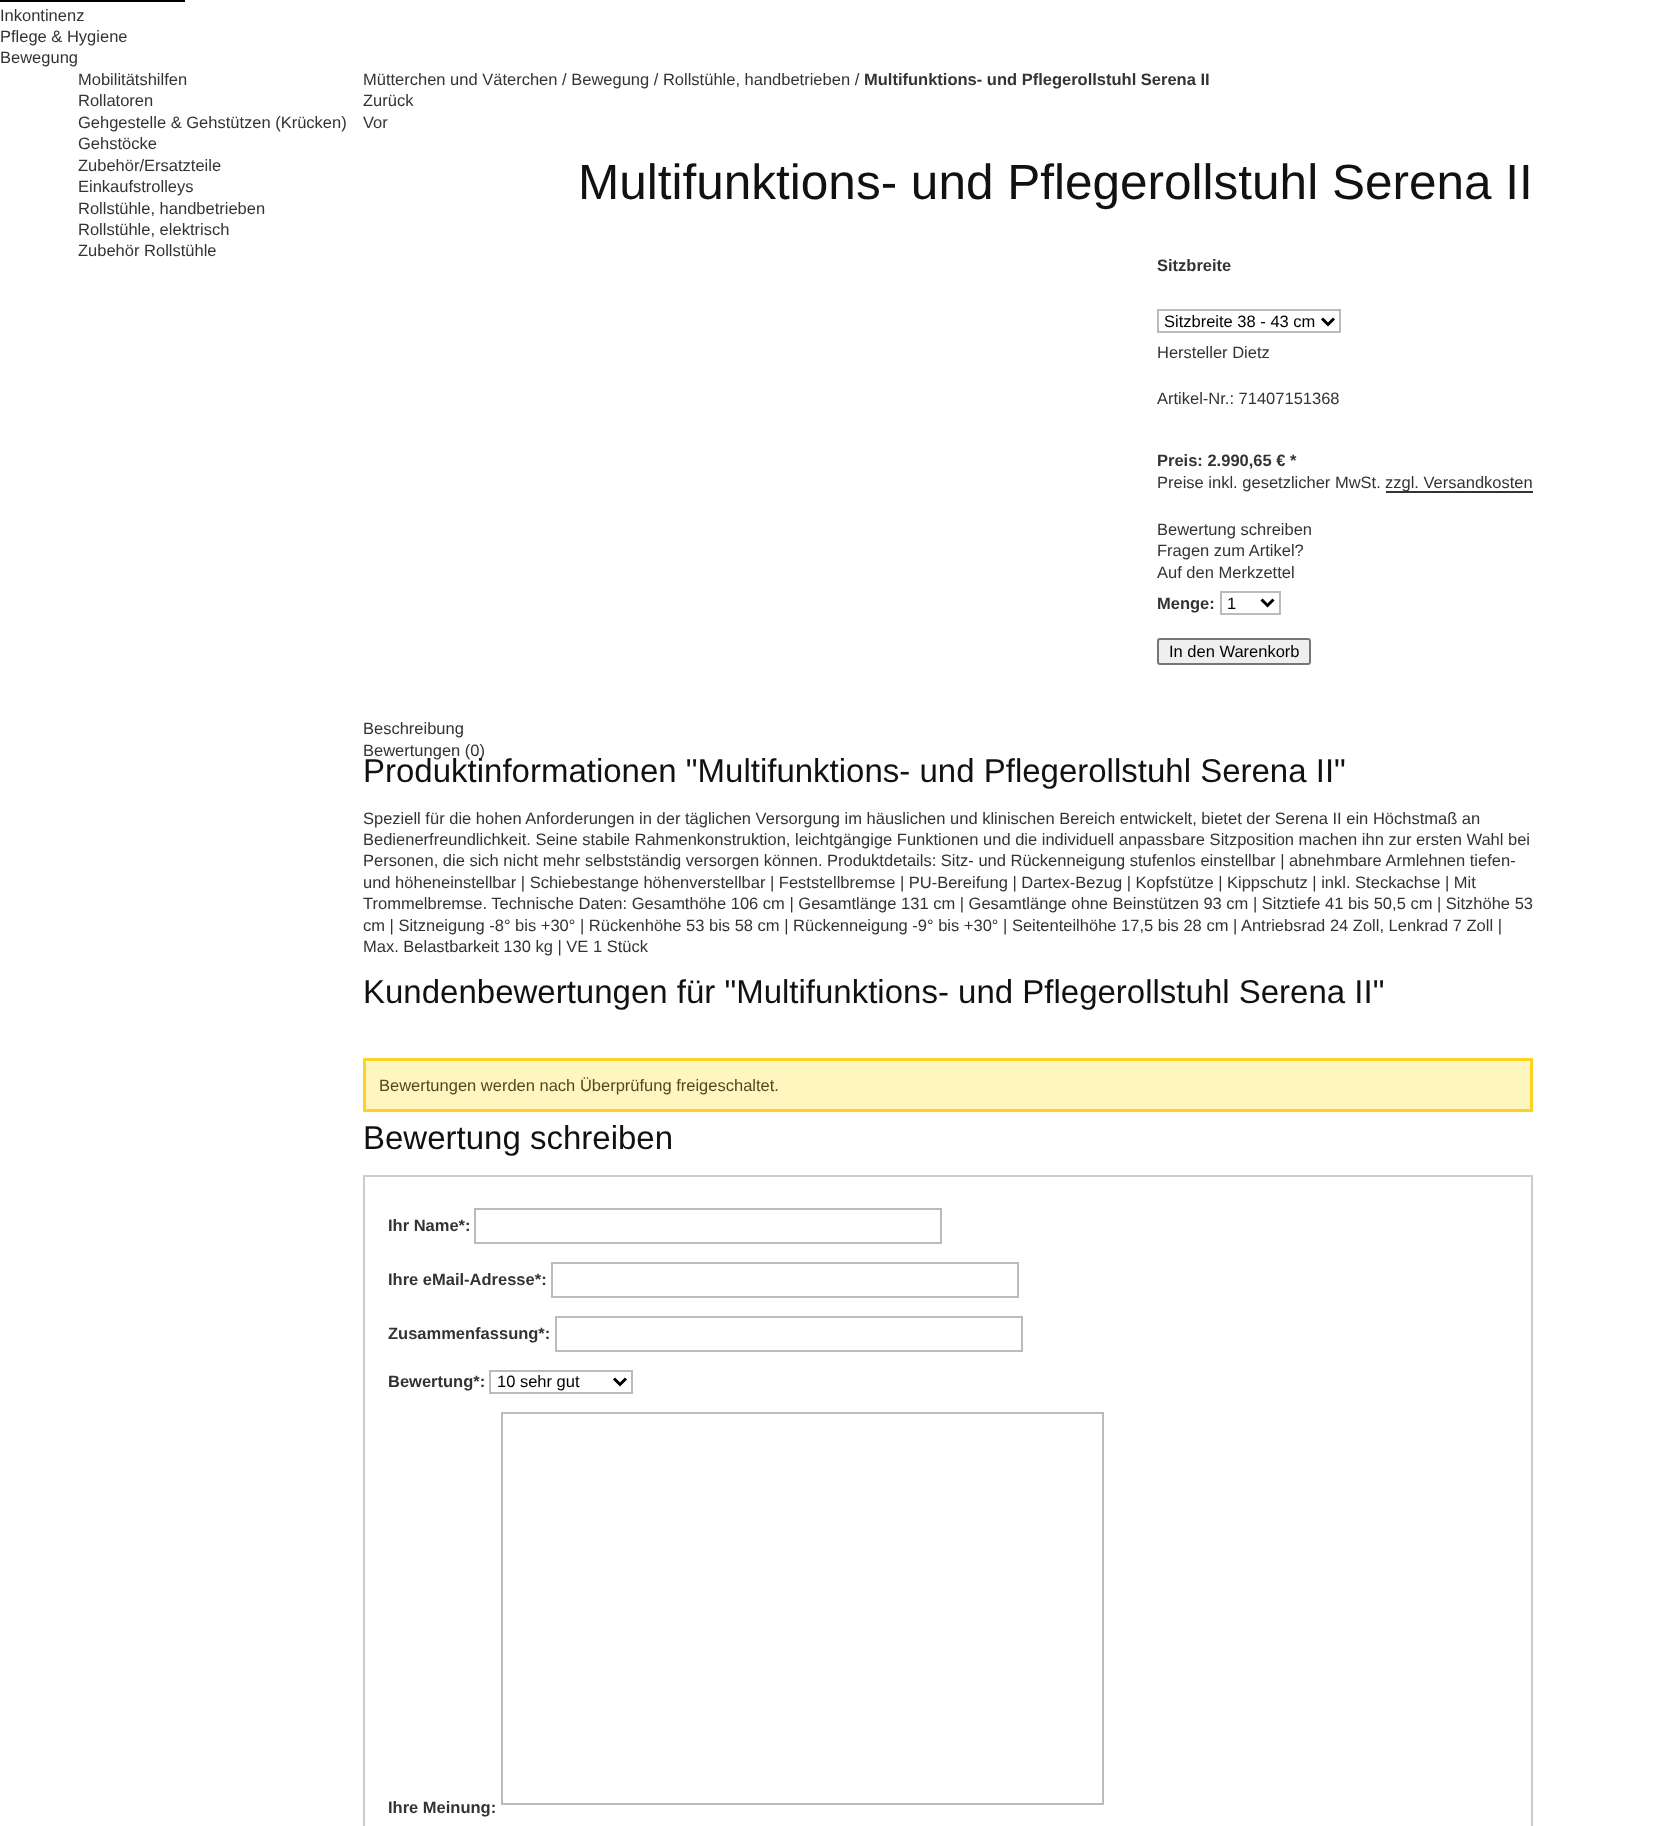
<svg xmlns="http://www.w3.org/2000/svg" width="1656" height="1826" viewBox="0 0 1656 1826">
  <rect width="100%" height="100%" fill="rgb(255,255,255)"/>
  <rect x="0" y="0" width="185" height="2" fill="rgb(0,0,0)"/>
  <g font-family="Liberation Sans" font-size="16.5" fill="rgb(51,51,51)">
    <text>
      <tspan x="0" y="21">Inkontinenz</tspan>
      <tspan x="0" y="42">Pflege &amp; Hygiene</tspan>
      <tspan x="0" y="63">Bewegung</tspan>
    </text>
    <text>
      <tspan x="78" y="85">Mobilitätshilfen</tspan>
      <tspan x="78" y="106">Rollatoren</tspan>
      <tspan x="78" y="128">Gehgestelle &amp; Gehstützen (Krücken)</tspan>
      <tspan x="78" y="149">Gehstöcke</tspan>
      <tspan x="78" y="171">Zubehör/Ersatzteile</tspan>
      <tspan x="78" y="192">Einkaufstrolleys</tspan>
      <tspan x="78" y="214">Rollstühle, handbetrieben</tspan>
      <tspan x="78" y="235">Rollstühle, elektrisch</tspan>
      <tspan x="78" y="256">Zubehör Rollstühle</tspan>
    </text>
    <text x="363" y="85">Mütterchen und Väterchen / Bewegung / Rollstühle, handbetrieben /</text>
  </g>
  <text x="864" y="85" font-family="Liberation Sans" font-size="16.5" font-weight="bold" fill="rgb(51,51,51)">Multifunktions- und Pflegerollstuhl Serena II</text>
  <g font-family="Liberation Sans" font-size="16.5" fill="rgb(51,51,51)">
    <text>
      <tspan x="363" y="106">Zurück</tspan>
      <tspan x="363" y="128">Vor</tspan>
    </text>
  </g>
  <text x="578" y="199" font-family="Liberation Sans" font-size="49.5" fill="rgb(17,17,17)">Multifunktions- und Pflegerollstuhl Serena II</text>
  <text x="1157" y="271" font-family="Liberation Sans" font-size="16.5" font-weight="bold" fill="rgb(51,51,51)">Sitzbreite</text>
  <rect x="1158" y="310" width="182" height="22" fill="none" stroke="rgb(187,187,187)" stroke-width="2"/>
  <path d="M1322 318.5L1328 324.5L1334 318.5" fill="none" stroke="rgb(0,0,0)" stroke-width="3"/>
  <text x="1164" y="327" font-family="Liberation Sans" font-size="16.5" fill="rgb(0,0,0)">Sitzbreite 38 - 43 cm</text>
  <g font-family="Liberation Sans" font-size="16.5" fill="rgb(51,51,51)">
    <text x="1157" y="358">Hersteller Dietz</text>
    <text x="1157" y="404">Artikel-Nr.: 71407151368</text>
  </g>
  <text x="1157" y="466" font-family="Liberation Sans" font-size="16.5" font-weight="bold" fill="rgb(51,51,51)">Preis: 2.990,65 € *</text>
  <text x="1157" y="488" font-family="Liberation Sans" font-size="16.5" fill="rgb(51,51,51)">Preise inkl. gesetzlicher MwSt.</text>
  <rect x="1386" y="491" width="147" height="2" fill="rgb(51,51,51)"/>
  <g font-family="Liberation Sans" font-size="16.5" fill="rgb(51,51,51)">
    <text x="1385" y="488">zzgl. Versandkosten</text>
    <text>
      <tspan x="1157" y="535">Bewertung schreiben</tspan>
      <tspan x="1157" y="556">Fragen zum Artikel?</tspan>
      <tspan x="1157" y="578">Auf den Merkzettel</tspan>
    </text>
  </g>
  <text x="1157" y="609" font-family="Liberation Sans" font-size="16.5" font-weight="bold" fill="rgb(51,51,51)">Menge:</text>
  <rect x="1221" y="592" width="59" height="22" fill="none" stroke="rgb(187,187,187)" stroke-width="2"/>
  <path d="M1261.5 599.5L1267.5 605.5L1273.5 599.5" fill="none" stroke="rgb(0,0,0)" stroke-width="3"/>
  <text x="1227" y="609" font-family="Liberation Sans" font-size="16.5" fill="rgb(0,0,0)">1</text>
  <rect x="1158" y="639" width="152" height="25" rx="2" fill="rgb(239,239,239)" stroke="rgb(118,118,118)" stroke-width="2"/>
  <text x="1169" y="657" font-family="Liberation Sans" font-size="16.5" fill="rgb(0,0,0)">In den Warenkorb</text>
  <g font-family="Liberation Sans" font-size="16.5" fill="rgb(51,51,51)">
    <text>
      <tspan x="363" y="734">Beschreibung</tspan>
      <tspan x="363" y="756">Bewertungen (0)</tspan>
    </text>
  </g>
  <text x="363" y="782" font-family="Liberation Sans" font-size="33" fill="rgb(17,17,17)">Produktinformationen "Multifunktions- und Pflegerollstuhl Serena II"</text>
  <g font-family="Liberation Sans" font-size="16.5" fill="rgb(51,51,51)">
    <text>
      <tspan x="363" y="824">Speziell für die hohen Anforderungen in der täglichen Versorgung im häuslichen und klinischen Bereich entwickelt, bietet der Serena II ein Höchstmaß an</tspan>
      <tspan x="363" y="845">Bedienerfreundlichkeit. Seine stabile Rahmenkonstruktion, leichtgängige Funktionen und die individuell anpassbare Sitzposition machen ihn zur ersten Wahl bei</tspan>
      <tspan x="363" y="866">Personen, die sich nicht mehr selbstständig versorgen können. Produktdetails: Sitz- und Rückenneigung stufenlos einstellbar | abnehmbare Armlehnen tiefen-</tspan>
      <tspan x="363" y="888">und höheneinstellbar | Schiebestange höhenverstellbar | Feststellbremse | PU-Bereifung | Dartex-Bezug | Kopfstütze | Kippschutz | inkl. Steckachse | Mit</tspan>
      <tspan x="363" y="909">Trommelbremse. Technische Daten: Gesamthöhe 106 cm | Gesamtlänge 131 cm | Gesamtlänge ohne Beinstützen 93 cm | Sitztiefe 41 bis 50,5 cm | Sitzhöhe 53</tspan>
      <tspan x="363" y="931">cm | Sitzneigung -8° bis +30° | Rückenhöhe 53 bis 58 cm | Rückenneigung -9° bis +30° | Seitenteilhöhe 17,5 bis 28 cm | Antriebsrad 24 Zoll, Lenkrad 7 Zoll |</tspan>
      <tspan x="363" y="952">Max. Belastbarkeit 130 kg | VE 1 Stück</tspan>
    </text>
  </g>
  <text x="363" y="1003" font-family="Liberation Sans" font-size="33" fill="rgb(17,17,17)">Kundenbewertungen für "Multifunktions- und Pflegerollstuhl Serena II"</text>
  <rect x="364.5" y="1059.5" width="1167" height="51" fill="rgb(255,246,191)" stroke="rgb(255,211,36)" stroke-width="3"/>
  <text x="379" y="1091" font-family="Liberation Sans" font-size="16.5" fill="rgb(81,71,33)">Bewertungen werden nach Überprüfung freigeschaltet.</text>
  <text x="363" y="1149" font-family="Liberation Sans" font-size="33" fill="rgb(17,17,17)">Bewertung schreiben</text>
  <rect x="364" y="1176" width="1168" height="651" fill="none" stroke="rgb(204,204,204)" stroke-width="2"/>
  <text x="388" y="1231" font-family="Liberation Sans" font-size="16.5" font-weight="bold" fill="rgb(51,51,51)">Ihr Name*:</text>
  <rect x="475" y="1209" width="466" height="34" fill="none" stroke="rgb(187,187,187)" stroke-width="2"/>
  <text x="388" y="1285" font-family="Liberation Sans" font-size="16.5" font-weight="bold" fill="rgb(51,51,51)">Ihre eMail-Adresse*:</text>
  <rect x="552" y="1263" width="466" height="34" fill="none" stroke="rgb(187,187,187)" stroke-width="2"/>
  <text x="388" y="1339" font-family="Liberation Sans" font-size="16.5" font-weight="bold" fill="rgb(51,51,51)">Zusammenfassung*:</text>
  <rect x="556" y="1317" width="466" height="34" fill="none" stroke="rgb(187,187,187)" stroke-width="2"/>
  <text x="388" y="1387" font-family="Liberation Sans" font-size="16.5" font-weight="bold" fill="rgb(51,51,51)">Bewertung*:</text>
  <rect x="490" y="1371" width="142" height="22" fill="none" stroke="rgb(187,187,187)" stroke-width="2"/>
  <path d="M614 1378.5L620 1384.5L626 1378.5" fill="none" stroke="rgb(0,0,0)" stroke-width="3"/>
  <text x="497" y="1387" font-family="Liberation Sans" font-size="16.5" fill="rgb(0,0,0)">10 sehr gut</text>
  <rect x="502" y="1413" width="601" height="391" fill="none" stroke="rgb(187,187,187)" stroke-width="2"/>
  <text x="388" y="1813" font-family="Liberation Sans" font-size="16.5" font-weight="bold" fill="rgb(51,51,51)">Ihre Meinung:</text>
</svg>
